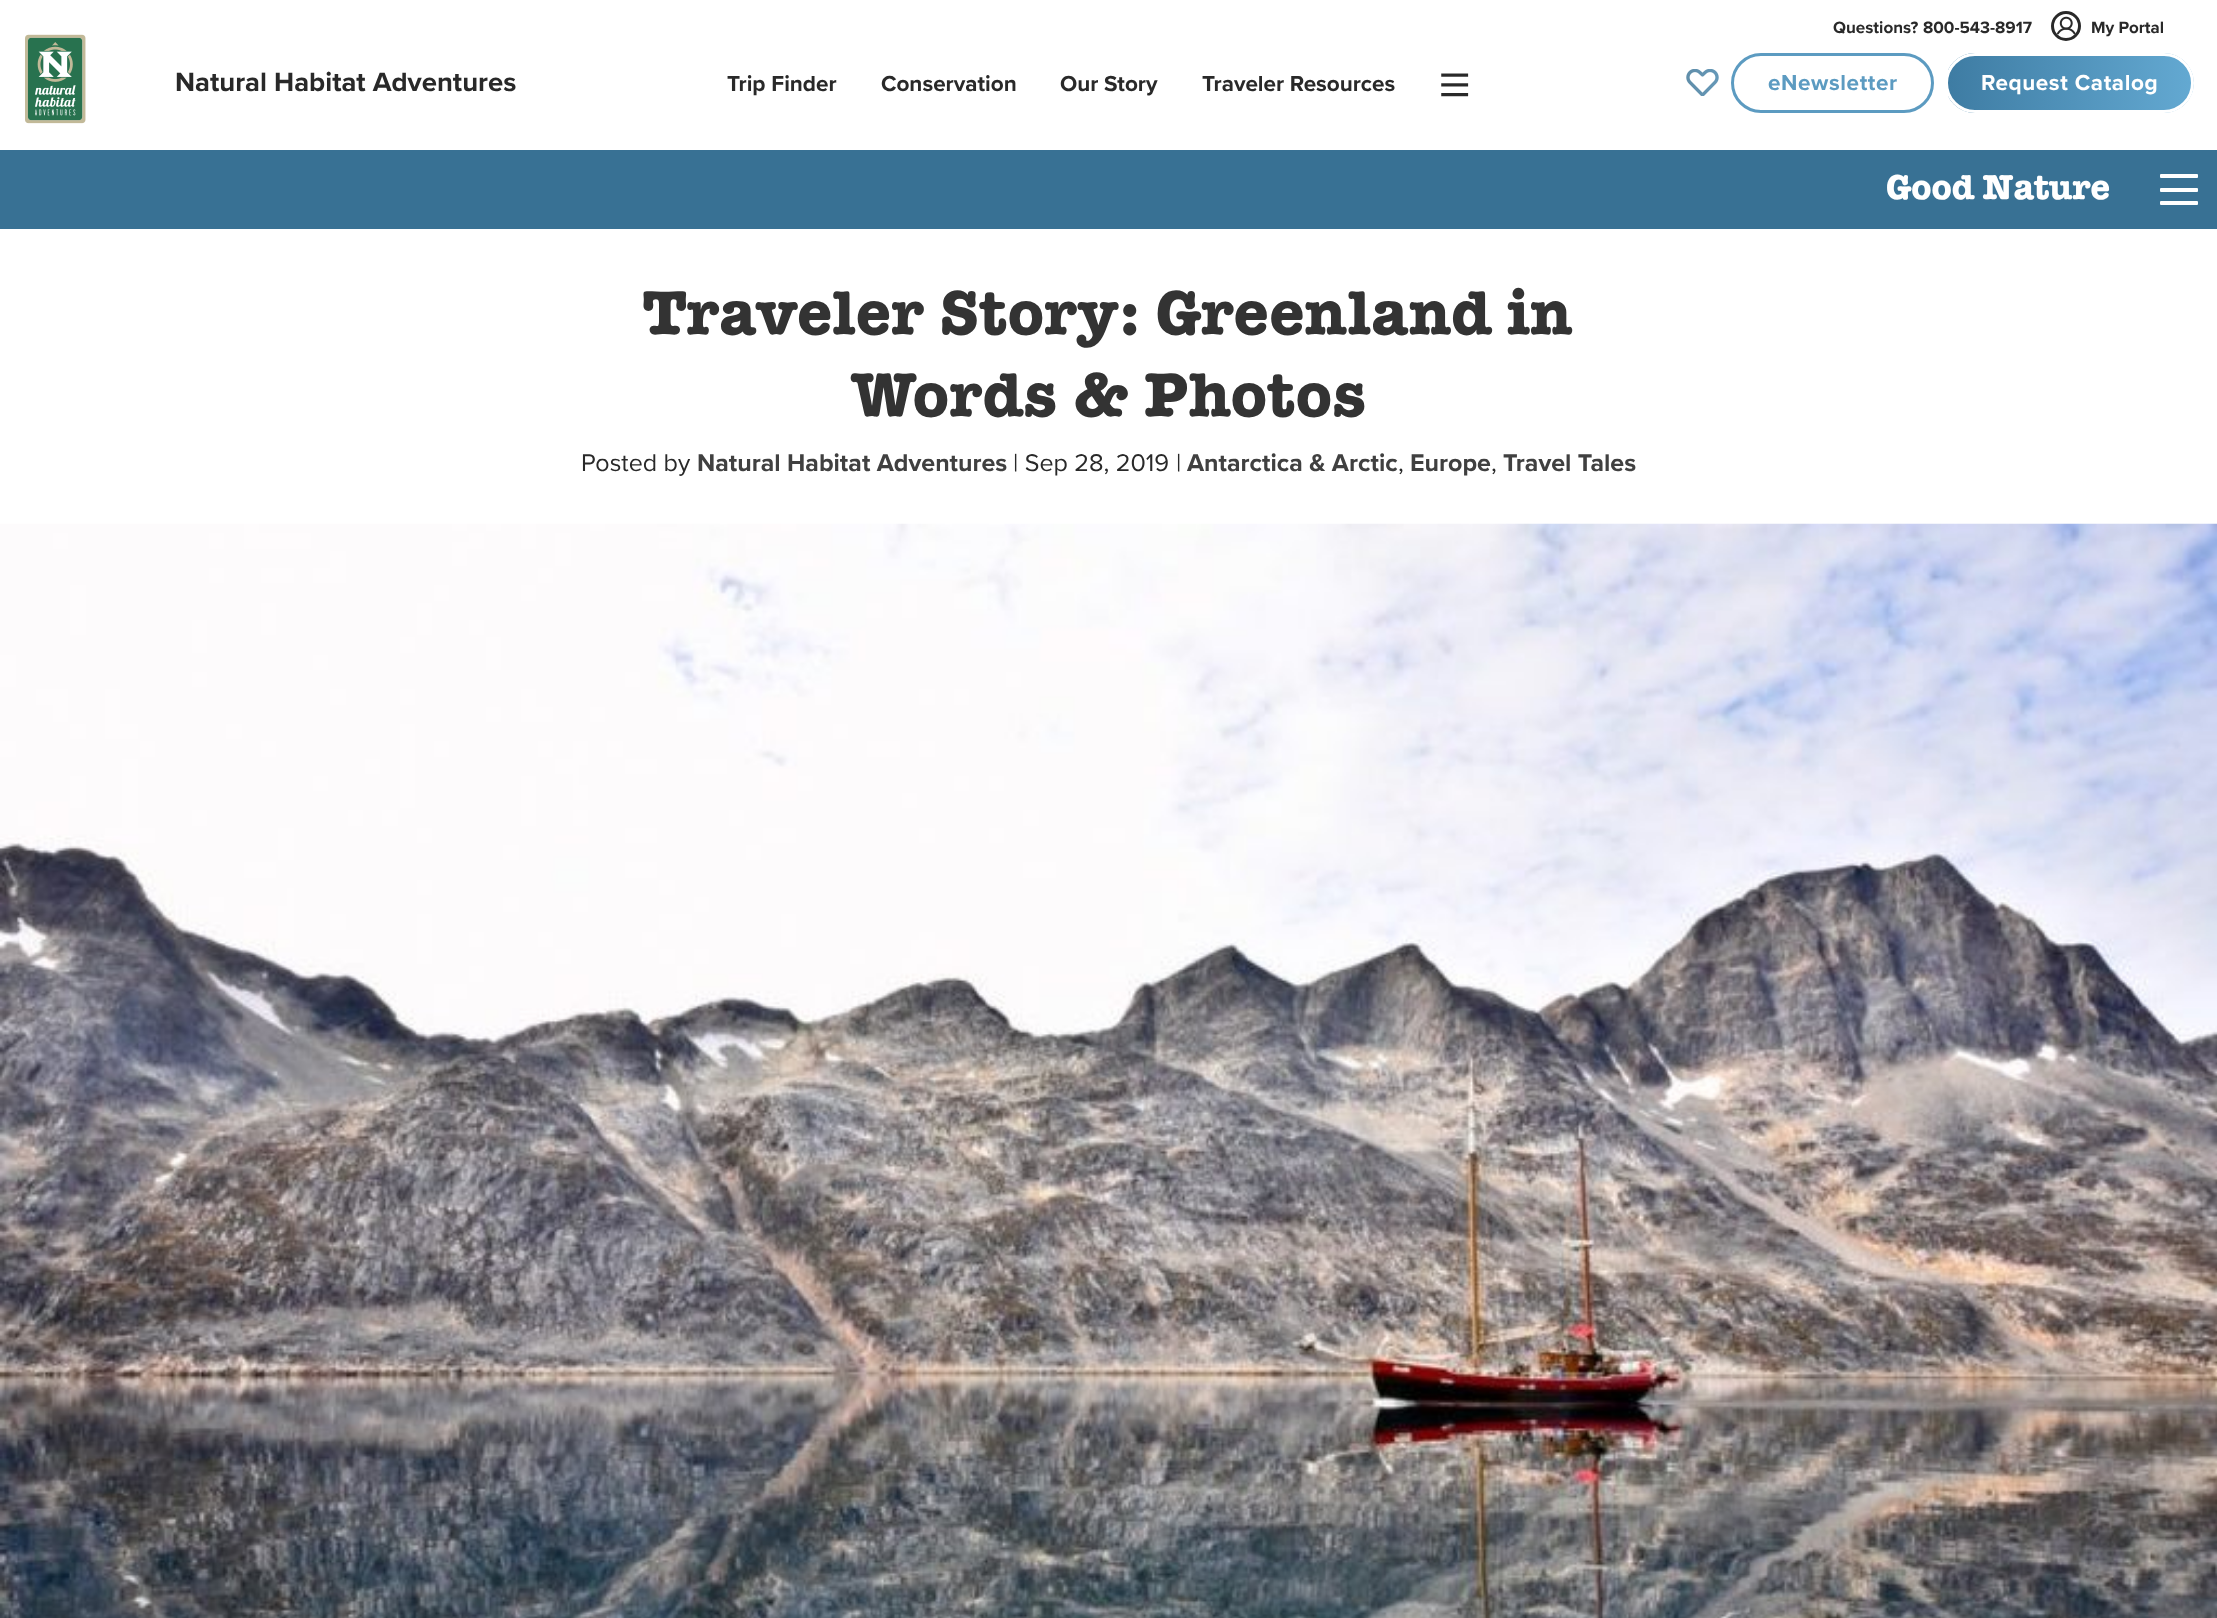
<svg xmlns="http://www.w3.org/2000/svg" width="2217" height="1618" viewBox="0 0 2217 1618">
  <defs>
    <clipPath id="clip1"><rect x="1945" y="53" width="249" height="60" rx="30"/></clipPath>
    <linearGradient id="g1" gradientUnits="userSpaceOnUse" x1="1948" y1="113" x2="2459" y2="113"><stop offset="0" stop-color="rgb(62,124,163)"/><stop offset="0.5" stop-color="rgb(101,171,212)"/><stop offset="0.5" stop-color="rgb(69,183,132)"/><stop offset="1" stop-color="rgb(46,122,88)"/></linearGradient>
  </defs>
  <rect width="100%" height="100%" fill="rgb(255,255,255)"/>
  <g font-family="Proxima Nova" font-size="17" font-weight="bold" fill="rgb(41,41,41)">
    <text x="1833" y="33">Questions?</text>
    <text x="1923" y="33">800-543-8917</text>
  </g>
  <circle cx="2066" cy="26" r="13.5" fill="none" stroke="rgb(41,41,41)" stroke-width="3"/>
  <image x="2057" y="16" width="19" height="19" href="pic1.png"/>
  <text x="2091" y="33" font-family="Proxima Nova" font-size="17" font-weight="bold" fill="rgb(41,41,41)">My Portal</text>
  <image x="25" y="34" width="61" height="90" href="pic2.png"/>
  <text x="175" y="91" font-family="Proxima Nova" font-size="27.5" font-weight="bold" fill="rgb(41,41,41)">Natural Habitat Adventures</text>
  <g font-family="Proxima Nova" font-size="22.5" font-weight="bold" fill="rgb(41,41,41)">
    <text x="727" y="91">Trip Finder</text>
    <text x="881" y="91">Conservation</text>
    <text x="1060" y="91">Our Story</text>
    <text x="1202" y="91">Traveler Resources</text>
  </g>
  <text x="1442" y="71" transform="rotate(90 1442 71)" font-family="Proxima Nova" font-size="38" font-weight="bold" letter-spacing="1.5" fill="rgb(41,41,41)">|||</text>
  <image x="1686" y="69" width="33" height="27" href="pic3.png"/>
  <rect x="1732.5" y="54.5" width="200" height="57" rx="28.5" fill="none" stroke="rgb(92,155,193)" stroke-width="3"/>
  <text x="1768" y="90" font-family="Proxima Nova" font-size="22.5" font-weight="bold" letter-spacing="0.6" fill="rgb(92,155,193)">eNewsletter</text>
  <g clip-path="url(#clip1)">
    <path d="M1948 53H2164C2180.5 53 2194 66.5 2194 83C2194 99.5 2180.5 113 2164 113H1948Z" fill="url(#g1)"/>
  </g>
  <rect x="1946.5" y="54.5" width="246" height="57" rx="28.5" fill="none" stroke="rgb(255,255,255)" stroke-width="3"/>
  <text x="1981" y="90" font-family="Proxima Nova" font-size="22.5" font-weight="bold" letter-spacing="0.6" fill="rgb(255,255,255)">Request Catalog</text>
  <rect x="0" y="150" width="2217" height="79" fill="rgb(56,113,148)"/>
  <text x="1886" y="199" font-family="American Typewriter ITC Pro" font-size="35" font-weight="bold" fill="rgb(255,255,255)">Good Nature</text>
  <rect x="2160" y="174" width="38" height="4" rx="1" fill="rgb(255,255,255)"/>
  <rect x="2160" y="188" width="38" height="4" rx="1" fill="rgb(255,255,255)"/>
  <rect x="2160" y="201" width="38" height="4" rx="1" fill="rgb(255,255,255)"/>
  <g font-family="American Typewriter ITC Pro" font-size="62.5" font-weight="bold" letter-spacing="0.6" fill="rgb(51,51,51)">
    <text x="643" y="334">Traveler Story: Greenland in</text>
    <text x="851" y="416">Words &amp; Photos</text>
  </g>
  <text x="581" y="471" font-family="Proxima Nova" font-size="25" fill="rgb(41,41,41)">Posted by</text>
  <text x="697" y="471" font-family="Proxima Nova" font-size="25" font-weight="bold" fill="rgb(64,64,64)">Natural Habitat Adventures</text>
  <g font-family="Proxima Nova" font-size="25" fill="rgb(41,41,41)">
    <text x="1013" y="471">| Sep 28, 2019</text>
    <text x="1176" y="471">|</text>
  </g>
  <text x="1187" y="471" font-family="Proxima Nova" font-size="25" font-weight="bold" fill="rgb(64,64,64)">Antarctica &amp; Arctic</text>
  <text x="1398" y="471" font-family="Proxima Nova" font-size="25" fill="rgb(41,41,41)">,</text>
  <text x="1410" y="471" font-family="Proxima Nova" font-size="25" font-weight="bold" fill="rgb(64,64,64)">Europe</text>
  <text x="1491" y="471" font-family="Proxima Nova" font-size="25" fill="rgb(41,41,41)">,</text>
  <text x="1503" y="471" font-family="Proxima Nova" font-size="25" font-weight="bold" fill="rgb(64,64,64)">Travel Tales</text>
  <image x="0" y="523" width="2217" height="1095" href="pic4.png"/>
</svg>
